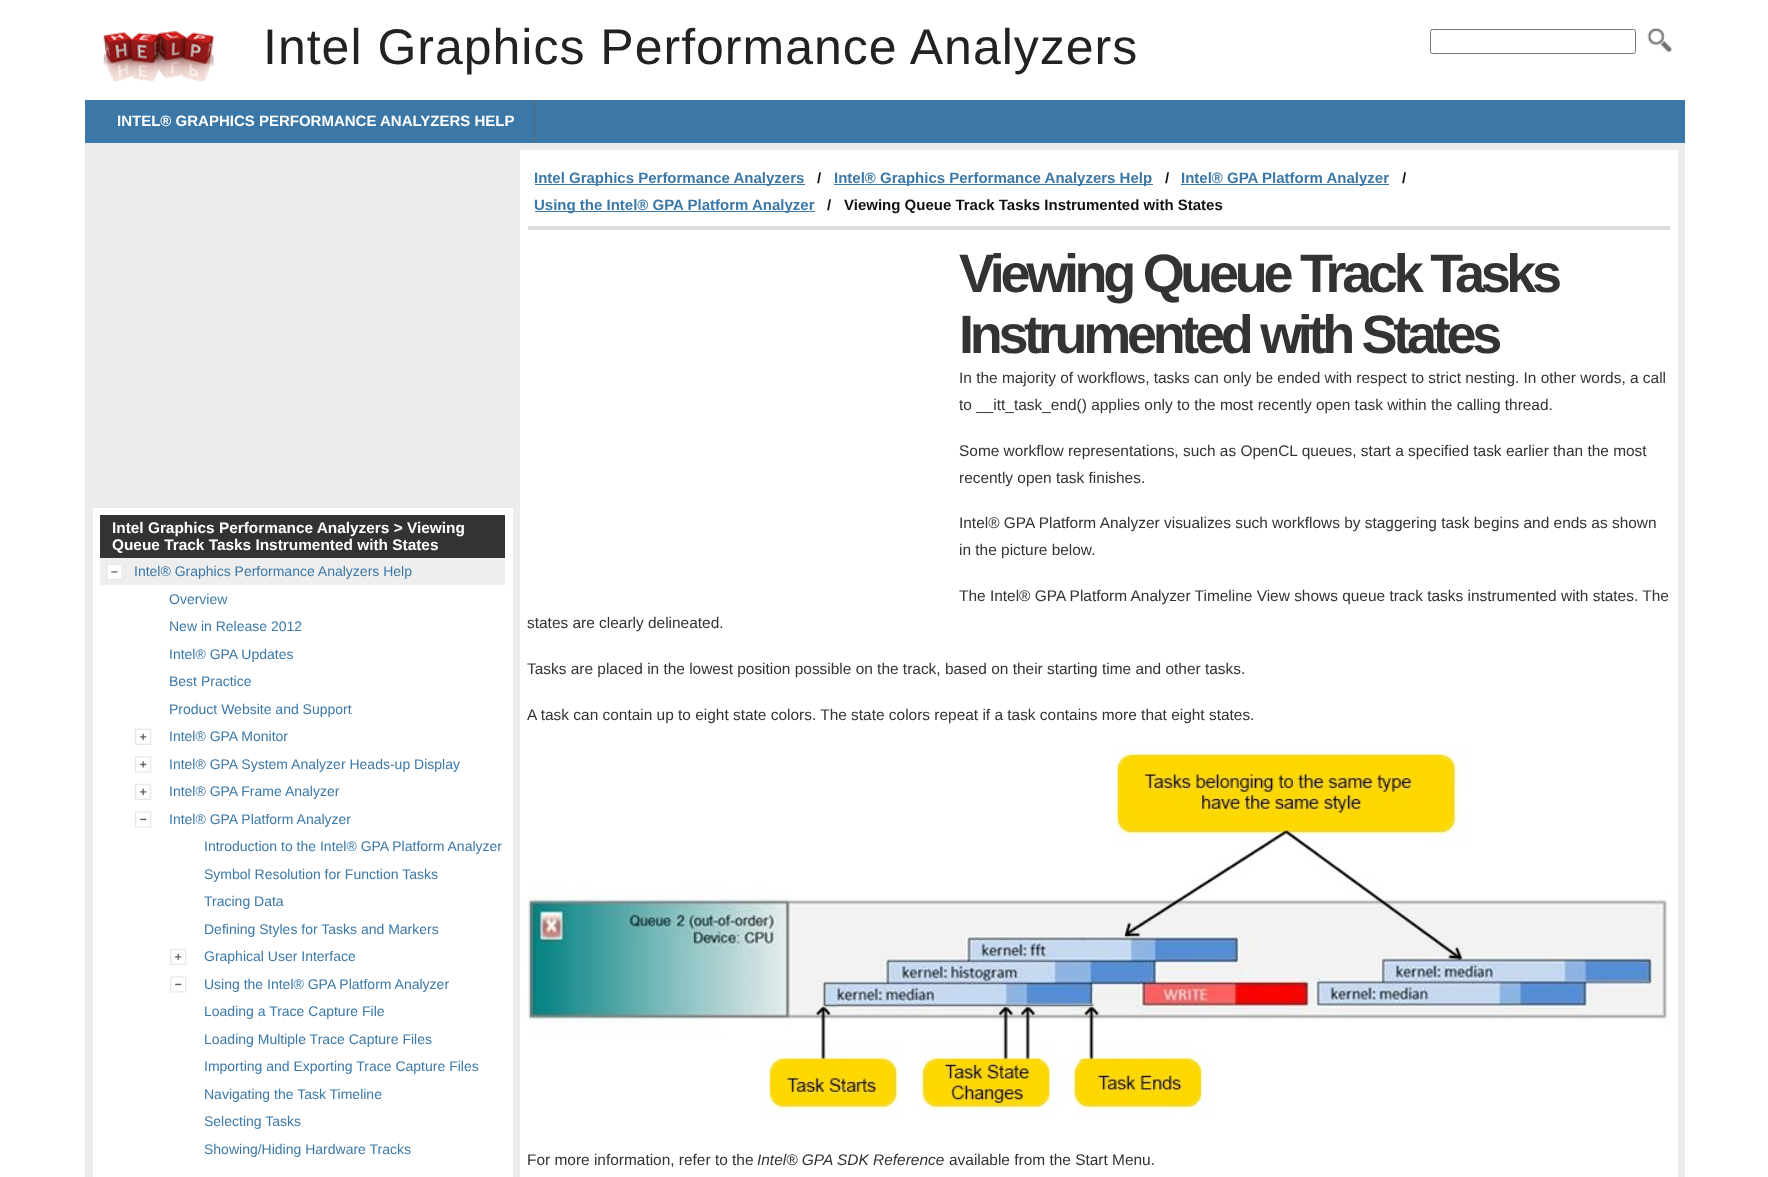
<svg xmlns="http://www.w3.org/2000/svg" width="1768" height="1177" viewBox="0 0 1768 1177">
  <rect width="100%" height="100%" fill="rgb(255,255,255)"/>
  <image x="103" y="31" width="111" height="51" href="pic1.png"/>
  <text x="263" y="64" font-family="Liberation Sans" font-size="50" letter-spacing="1" fill="rgb(34,34,34)">Intel Graphics Performance Analyzers</text>
  <rect x="1430.5" y="29.5" width="205" height="24" rx="2" fill="none" stroke="rgb(118,118,118)"/>
  <image x="1647" y="28" width="25" height="25" href="pic2.png"/>
  <rect x="85" y="100" width="1600" height="43" fill="rgb(60,120,167)"/>
  <rect x="534" y="100" width="1" height="43" fill="rgb(102,102,102)"/>
  <text x="117" y="126" font-family="Liberation Sans" font-size="15" font-weight="bold" fill="rgb(255,255,255)">INTEL® GRAPHICS PERFORMANCE ANALYZERS HELP</text>
  <rect x="85" y="143" width="1600" height="1034" fill="rgb(236,236,236)"/>
  <rect x="93" y="508" width="420" height="669" fill="rgb(255,255,255)"/>
  <rect x="100" y="515" width="405" height="43" fill="rgb(51,51,51)"/>
  <g font-family="Liberation Sans" font-size="15.4" font-weight="bold" fill="rgb(255,255,255)">
    <text>
      <tspan x="112" y="533">Intel Graphics Performance Analyzers &gt; Viewing</tspan>
      <tspan x="112" y="550">Queue Track Tasks Instrumented with States</tspan>
    </text>
  </g>
  <rect x="100" y="558" width="405" height="27" fill="rgb(238,238,238)"/>
  <image x="106" y="564" width="16" height="16" href="pic3.png"/>
  <g font-family="Liberation Sans" font-size="14" fill="rgb(60,120,167)">
    <text x="134" y="576">Intel® Graphics Performance Analyzers Help</text>
    <text>
      <tspan x="169" y="604">Overview</tspan>
      <tspan x="169" y="631">New in Release 2012</tspan>
    </text>
    <text>
      <tspan x="169" y="659">Intel® GPA Updates</tspan>
      <tspan x="169" y="686">Best Practice</tspan>
    </text>
    <text x="169" y="714">Product Website and Support</text>
  </g>
  <image x="135" y="728" width="17" height="17" href="pic4.png"/>
  <text x="169" y="741" font-family="Liberation Sans" font-size="14" fill="rgb(60,120,167)">Intel® GPA Monitor</text>
  <image x="135" y="756" width="17" height="17" href="pic5.png"/>
  <text x="169" y="769" font-family="Liberation Sans" font-size="14" fill="rgb(60,120,167)">Intel® GPA System Analyzer Heads-up Display</text>
  <image x="135" y="783" width="17" height="17" href="pic4.png"/>
  <text x="169" y="796" font-family="Liberation Sans" font-size="14" fill="rgb(60,120,167)">Intel® GPA Frame Analyzer</text>
  <image x="135" y="811" width="17" height="17" href="pic6.png"/>
  <g font-family="Liberation Sans" font-size="14" fill="rgb(60,120,167)">
    <text x="169" y="824">Intel® GPA Platform Analyzer</text>
    <text x="204" y="851">Introduction to the Intel® GPA Platform Analyzer</text>
    <text>
      <tspan x="204" y="879">Symbol Resolution for Function Tasks</tspan>
      <tspan x="204" y="906">Tracing Data</tspan>
    </text>
    <text x="204" y="934">Defining Styles for Tasks and Markers</text>
  </g>
  <image x="170" y="948" width="17" height="17" href="pic4.png"/>
  <text x="204" y="961" font-family="Liberation Sans" font-size="14" fill="rgb(60,120,167)">Graphical User Interface</text>
  <image x="170" y="976" width="17" height="17" href="pic6.png"/>
  <g font-family="Liberation Sans" font-size="14" fill="rgb(60,120,167)">
    <text>
      <tspan x="204" y="989">Using the Intel® GPA Platform Analyzer</tspan>
      <tspan x="204" y="1016">Loading a Trace Capture File</tspan>
    </text>
    <text>
      <tspan x="204" y="1044">Loading Multiple Trace Capture Files</tspan>
      <tspan x="204" y="1071">Importing and Exporting Trace Capture Files</tspan>
    </text>
    <text>
      <tspan x="204" y="1099">Navigating the Task Timeline</tspan>
      <tspan x="204" y="1126">Selecting Tasks</tspan>
    </text>
    <text x="204" y="1154">Showing/Hiding Hardware Tracks</text>
  </g>
  <rect x="520" y="150" width="1158" height="1027" fill="rgb(255,255,255)"/>
  <rect x="528" y="226" width="1142" height="4" fill="rgb(221,221,221)"/>
  <rect x="535" y="184" width="270" height="1" fill="rgb(60,120,167)"/>
  <text x="534" y="183" font-family="Liberation Sans" font-size="15" font-weight="bold" fill="rgb(60,120,167)">Intel Graphics Performance Analyzers</text>
  <text x="817" y="183" font-family="Liberation Sans" font-size="15" font-weight="bold" fill="rgb(17,17,17)">/</text>
  <rect x="834" y="184" width="319" height="1" fill="rgb(60,120,167)"/>
  <text x="834" y="183" font-family="Liberation Sans" font-size="15" font-weight="bold" fill="rgb(60,120,167)">Intel® Graphics Performance Analyzers Help</text>
  <text x="1165" y="183" font-family="Liberation Sans" font-size="15" font-weight="bold" fill="rgb(17,17,17)">/</text>
  <rect x="1181" y="184" width="208" height="1" fill="rgb(60,120,167)"/>
  <text x="1181" y="183" font-family="Liberation Sans" font-size="15" font-weight="bold" fill="rgb(60,120,167)">Intel® GPA Platform Analyzer</text>
  <text x="1402" y="183" font-family="Liberation Sans" font-size="15" font-weight="bold" fill="rgb(17,17,17)">/</text>
  <rect x="535" y="211" width="280" height="1" fill="rgb(60,120,167)"/>
  <text x="534" y="210" font-family="Liberation Sans" font-size="15" font-weight="bold" fill="rgb(60,120,167)">Using the Intel® GPA Platform Analyzer</text>
  <g font-family="Liberation Sans" font-size="15" font-weight="bold" fill="rgb(17,17,17)">
    <text x="827" y="210">/</text>
    <text x="844" y="210">Viewing Queue Track Tasks Instrumented with States</text>
  </g>
  <g font-family="Liberation Sans" font-size="54" font-weight="bold" letter-spacing="-4.3" fill="rgb(51,51,51)">
    <text>
      <tspan x="959" y="292">Viewing Queue Track Tasks</tspan>
      <tspan x="959" y="353">Instrumented with States</tspan>
    </text>
  </g>
  <g font-family="Liberation Sans" font-size="15.45" fill="rgb(51,51,51)">
    <text>
      <tspan x="959" y="383">In the majority of workflows, tasks can only be ended with respect to strict nesting. In other words, a call</tspan>
      <tspan x="959" y="410">to __itt_task_end() applies only to the most recently open task within the calling thread.</tspan>
    </text>
    <text>
      <tspan x="959" y="456">Some workflow representations, such as OpenCL queues, start a specified task earlier than the most</tspan>
      <tspan x="959" y="483">recently open task finishes.</tspan>
    </text>
    <text>
      <tspan x="959" y="528">Intel® GPA Platform Analyzer visualizes such workflows by staggering task begins and ends as shown</tspan>
      <tspan x="959" y="555">in the picture below.</tspan>
    </text>
    <text x="959" y="601">The Intel® GPA Platform Analyzer Timeline View shows queue track tasks instrumented with states. The</text>
    <text x="527" y="628">states are clearly delineated.</text>
    <text x="527" y="674">Tasks are placed in the lowest position possible on the track, based on their starting time and other tasks.</text>
    <text x="527" y="720">A task can contain up to eight state colors. The state colors repeat if a task contains more that eight states.</text>
  </g>
  <image x="527" y="747" width="1143" height="371" href="pic7.png"/>
  <text x="527" y="1165" font-family="Liberation Sans" font-size="15.45" fill="rgb(51,51,51)">For more information, refer to the</text>
  <text x="757" y="1165" font-family="Liberation Sans" font-size="15.45" font-style="italic" fill="rgb(51,51,51)">Intel® GPA SDK Reference</text>
  <text x="949" y="1165" font-family="Liberation Sans" font-size="15.45" fill="rgb(51,51,51)">available from the Start Menu.</text>
</svg>
